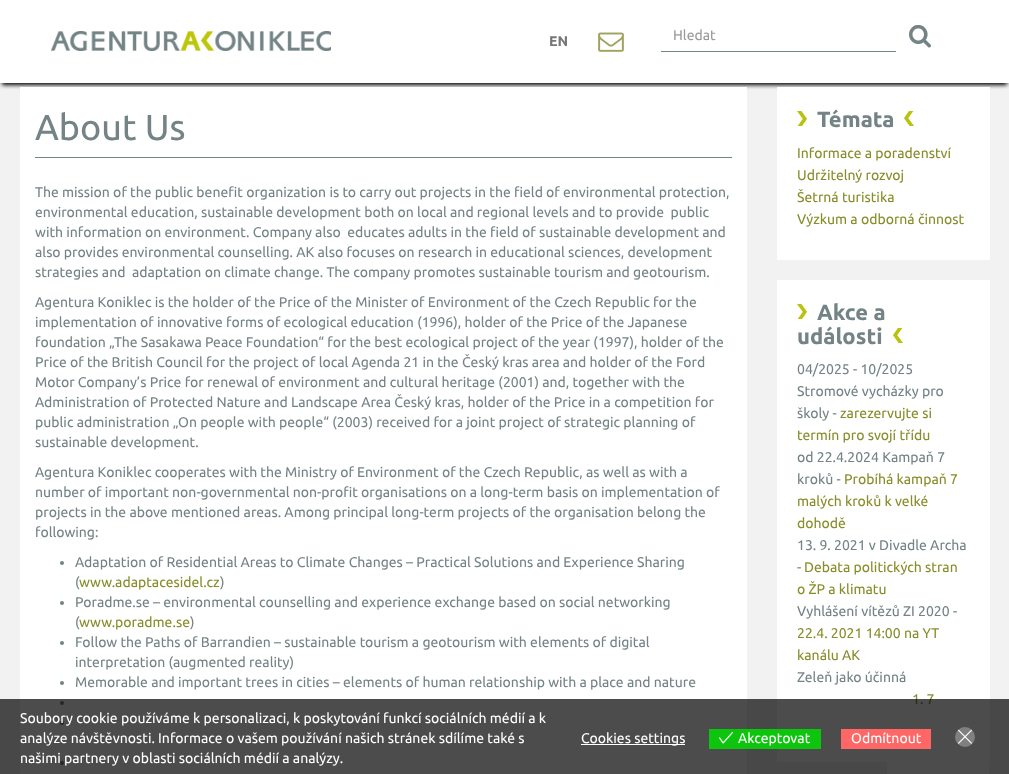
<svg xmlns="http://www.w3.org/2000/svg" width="1009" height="774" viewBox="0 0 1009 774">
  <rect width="100%" height="100%" fill="rgb(242,242,242)"/>
  <rect x="2" y="6" width="1005" height="79" fill="rgb(0,0,0)" filter="blur(2px)"/>
  <rect x="0" y="0" width="1009" height="83" fill="rgb(255,255,255)"/>
  <image x="51" y="31" width="280" height="20" href="pic1.png"/>
  <text x="549" y="46" font-family="Ubuntu" font-size="14" font-weight="bold" fill="rgb(119,119,119)">EN</text>
  <image x="598" y="32" width="26" height="20" href="pic2.png"/>
  <rect x="661" y="51" width="236" height="1" fill="rgb(116,131,133)"/>
  <text x="673" y="40" font-family="Ubuntu" font-size="14" fill="rgb(153,153,153)">Hledat</text>
  <rect x="896" y="51" width="1" height="1" fill="rgb(255,255,255)"/>
  <image x="909" y="25" width="22" height="23" href="pic3.png"/>
  <rect x="20" y="87" width="727" height="687" fill="rgb(255,255,255)"/>
  <rect x="35" y="157" width="697" height="1" fill="rgb(116,131,133)"/>
  <text x="35" y="140" font-family="Ubuntu" font-size="36" fill="rgb(116,131,133)">About Us</text>
  <g font-family="Ubuntu" font-size="14" fill="rgb(116,131,133)">
    <text xml:space="preserve"><tspan x="35" y="197">The mission of the public benefit organization is to carry out projects in the field of environmental protection,</tspan><tspan x="35" y="217">environmental education, sustainable development both on local and regional levels and to provide  public</tspan><tspan x="35" y="237">with information on environment. Company also  educates adults in the field of sustainable development and</tspan><tspan x="35" y="257">also provides environmental counselling. AK also focuses on research in educational sciences, development</tspan><tspan x="35" y="277">strategies and  adaptation on climate change. The company promotes sustainable tourism and geotourism.</tspan></text>
    <text>
      <tspan x="35" y="307">Agentura Koniklec is the holder of the Price of the Minister of Environment of the Czech Republic for the</tspan>
      <tspan x="35" y="327">implementation of innovative forms of ecological education (1996), holder of the Price of the Japanese</tspan>
      <tspan x="35" y="347">foundation „The Sasakawa Peace Foundation“ for the best ecological project of the year (1997), holder of the</tspan>
      <tspan x="35" y="367">Price of the British Council for the project of local Agenda 21 in the Český kras area and holder of the Ford</tspan>
      <tspan x="35" y="387">Motor Company’s Price for renewal of environment and cultural heritage (2001) and, together with the</tspan>
      <tspan x="35" y="407">Administration of Protected Nature and Landscape Area Český kras, holder of the Price in a competition for</tspan>
      <tspan x="35" y="427">public administration „On people with people“ (2003) received for a joint project of strategic planning of</tspan>
      <tspan x="35" y="447">sustainable development.</tspan>
    </text>
    <text>
      <tspan x="35" y="477">Agentura Koniklec cooperates with the Ministry of Environment of the Czech Republic, as well as with a</tspan>
      <tspan x="35" y="497">number of important non-governmental non-profit organisations on a long-term basis on implementation of</tspan>
      <tspan x="35" y="517">projects in the above mentioned areas. Among principal long-term projects of the organisation belong the</tspan>
      <tspan x="35" y="537">following:</tspan>
    </text>
  </g>
  <circle cx="62" cy="563" r="2" fill="rgb(116,131,133)"/>
  <g font-family="Ubuntu" font-size="14" fill="rgb(116,131,133)">
    <text>
      <tspan x="75" y="567">Adaptation of Residential Areas to Climate Changes – Practical Solutions and Experience Sharing</tspan>
      <tspan x="75" y="587">(</tspan>
    </text>
  </g>
  <text x="79" y="587" font-family="Ubuntu" font-size="14" fill="rgb(136,141,42)">www.adaptacesidel.cz</text>
  <text x="220" y="587" font-family="Ubuntu" font-size="14" fill="rgb(116,131,133)">)</text>
  <circle cx="62" cy="603" r="2" fill="rgb(116,131,133)"/>
  <g font-family="Ubuntu" font-size="14" fill="rgb(116,131,133)">
    <text>
      <tspan x="75" y="607">Poradme.se – environmental counselling and experience exchange based on social networking</tspan>
      <tspan x="75" y="627">(</tspan>
    </text>
  </g>
  <text x="79" y="627" font-family="Ubuntu" font-size="14" fill="rgb(136,141,42)">www.poradme.se</text>
  <text x="190" y="627" font-family="Ubuntu" font-size="14" fill="rgb(116,131,133)">)</text>
  <circle cx="62" cy="643" r="2" fill="rgb(116,131,133)"/>
  <g font-family="Ubuntu" font-size="14" fill="rgb(116,131,133)">
    <text>
      <tspan x="75" y="647">Follow the Paths of Barrandien – sustainable tourism a geotourism with elements of digital</tspan>
      <tspan x="75" y="667">interpretation (augmented reality)</tspan>
    </text>
  </g>
  <circle cx="62" cy="683" r="2" fill="rgb(116,131,133)"/>
  <text x="75" y="687" font-family="Ubuntu" font-size="14" fill="rgb(116,131,133)">Memorable and important trees in cities – elements of human relationship with a place and nature</text>
  <circle cx="62" cy="703" r="2" fill="rgb(116,131,133)"/>
  <circle cx="62" cy="723" r="2" fill="rgb(116,131,133)"/>
  <circle cx="62" cy="763" r="2" fill="rgb(116,131,133)"/>
  <rect x="777" y="87" width="213" height="173" fill="rgb(255,255,255)"/>
  <image x="797" y="111" width="10" height="15" href="pic4.png"/>
  <text x="817" y="127" font-family="Ubuntu" font-size="22" font-weight="bold" fill="rgb(116,131,133)">Témata</text>
  <image x="904" y="111" width="10" height="15" href="pic5.png"/>
  <g font-family="Ubuntu" font-size="14" fill="rgb(136,141,42)">
    <text>
      <tspan x="797" y="158">Informace a poradenství</tspan>
      <tspan x="797" y="180">Udržitelný rozvoj</tspan>
      <tspan x="797" y="202">Šetrná turistika</tspan>
      <tspan x="797" y="224">Výzkum a odborná činnost</tspan>
    </text>
  </g>
  <rect x="777" y="280" width="213" height="482" fill="rgb(255,255,255)"/>
  <image x="797" y="304" width="10" height="15" href="pic4.png"/>
  <g font-family="Ubuntu" font-size="22" font-weight="bold" fill="rgb(116,131,133)">
    <text x="817" y="320">Akce a</text>
    <text x="797" y="344">události</text>
  </g>
  <image x="893" y="328" width="10" height="15" href="pic5.png"/>
  <g font-family="Ubuntu" font-size="14" fill="rgb(116,131,133)">
    <text>
      <tspan x="797" y="374">04/2025 - 10/2025</tspan>
      <tspan x="797" y="396">Stromové vycházky pro</tspan>
      <tspan x="797" y="418">školy -</tspan>
    </text>
  </g>
  <g font-family="Ubuntu" font-size="14" fill="rgb(136,141,42)">
    <text x="840" y="418">zarezervujte si</text>
    <text x="797" y="440">termín pro svojí třídu</text>
  </g>
  <g font-family="Ubuntu" font-size="14" fill="rgb(116,131,133)">
    <text>
      <tspan x="797" y="462">od 22.4.2024 Kampaň 7</tspan>
      <tspan x="797" y="484">kroků -</tspan>
    </text>
  </g>
  <g font-family="Ubuntu" font-size="14" fill="rgb(136,141,42)">
    <text x="844" y="484">Probíhá kampaň 7</text>
    <text>
      <tspan x="797" y="506">malých kroků k velké</tspan>
      <tspan x="797" y="528">dohodě</tspan>
    </text>
  </g>
  <g font-family="Ubuntu" font-size="14" fill="rgb(116,131,133)">
    <text>
      <tspan x="797" y="550">13. 9. 2021 v Divadle Archa</tspan>
      <tspan x="797" y="572">-</tspan>
    </text>
  </g>
  <g font-family="Ubuntu" font-size="14" fill="rgb(136,141,42)">
    <text x="804" y="572">Debata politických stran</text>
    <text x="797" y="594">o ŽP a klimatu</text>
  </g>
  <text x="797" y="616" font-family="Ubuntu" font-size="14" fill="rgb(116,131,133)">Vyhlášení vítězů ZI 2020 -</text>
  <g font-family="Ubuntu" font-size="14" fill="rgb(136,141,42)">
    <text>
      <tspan x="797" y="638">22.4. 2021 14:00 na YT</tspan>
      <tspan x="797" y="660">kanálu AK</tspan>
    </text>
  </g>
  <text x="797" y="682" font-family="Ubuntu" font-size="14" fill="rgb(116,131,133)">Zeleň jako účinná</text>
  <text x="912" y="704" font-family="Ubuntu" font-size="14" fill="rgb(136,141,42)">1. 7</text>
  <rect x="887" y="762" width="102" height="12" fill="rgb(255,255,255)"/>
  <rect x="0" y="699" width="1009" height="75" fill="rgba(0,0,0,0.7)"/>
  <g font-family="Ubuntu" font-size="14" fill="rgb(255,255,255)">
    <text>
      <tspan x="20" y="723">Soubory cookie používáme k personalizaci, k poskytování funkcí sociálních médií a k</tspan>
      <tspan x="20" y="743">analýze návštěvnosti. Informace o vašem používání našich stránek sdílíme také s</tspan>
      <tspan x="20" y="763">našimi partnery v oblasti sociálních médií a analýzy.</tspan>
    </text>
  </g>
  <rect x="581" y="744" width="104" height="1" fill="rgb(255,255,255)"/>
  <text x="581" y="743" font-family="Ubuntu" font-size="14" fill="rgb(255,255,255)">Cookies settings</text>
  <rect x="709" y="729" width="112" height="20" fill="rgb(14,197,14)"/>
  <image x="719" y="732" width="14" height="12" href="pic6.png"/>
  <text x="738" y="743" font-family="Ubuntu" font-size="14" fill="rgb(255,255,255)">Akceptovat</text>
  <rect x="841" y="729" width="90" height="20" fill="rgb(255,102,102)"/>
  <text x="851" y="743" font-family="Ubuntu" font-size="14" fill="rgb(255,255,255)">Odmítnout</text>
  <circle cx="965" cy="737" r="10" fill="rgb(128,128,128)"/>
  <image x="958" y="729" width="14" height="15" href="pic7.png"/>
</svg>
